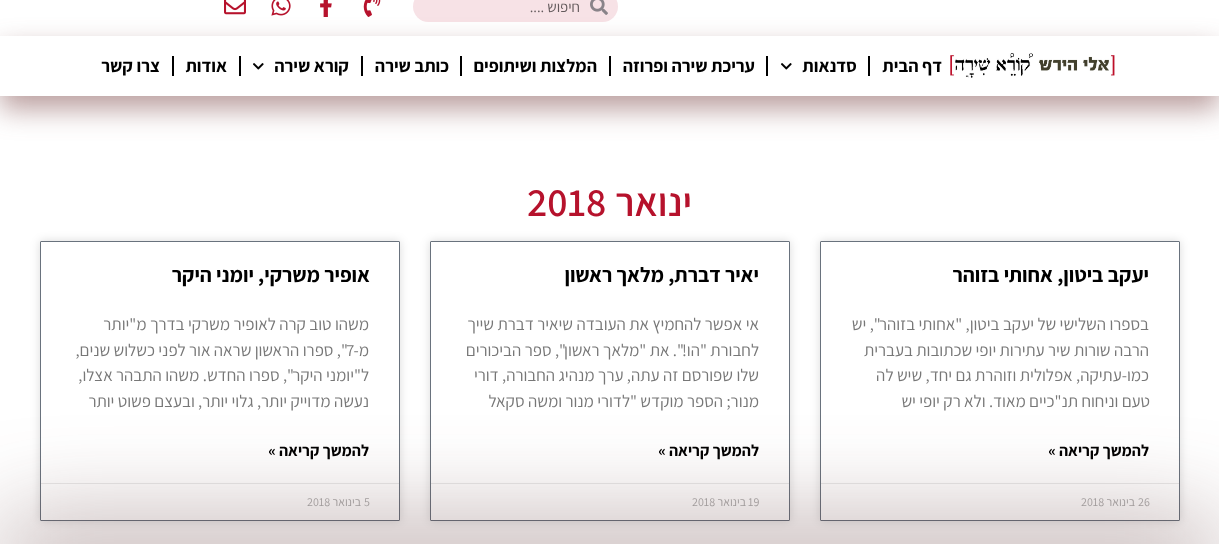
<svg xmlns="http://www.w3.org/2000/svg" width="1219" height="544" viewBox="0 0 1219 544">
  <defs>
    <clipPath id="clip1"><path d="M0 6H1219V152H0ZM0 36H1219V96H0Z" clip-rule="evenodd"/></clipPath>
  </defs>
  <rect width="100%" height="100%" fill="rgb(255,255,255)"/>
  <rect x="413" y="-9" width="205" height="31" rx="15.5" fill="rgb(247,226,230)"/>
  <image x="590" y="0" width="18" height="15" href="pic1.png"/>
  <text x="580" y="12" font-family="Assistant" font-size="15" direction="rtl" fill="rgb(99,90,92)">חיפוש ....</text>
  <image x="363" y="0" width="18" height="17" href="pic2.png"/>
  <image x="320" y="0" width="12" height="17" href="pic3.png"/>
  <image x="271" y="0" width="20" height="16" href="pic4.png"/>
  <image x="224" y="0" width="22" height="15" href="pic5.png"/>
  <g clip-path="url(#clip1)">
    <rect x="0" y="49" width="1219" height="60" fill="rgba(117,62,62,0.5)" filter="blur(14px)"/>
  </g>
  <image x="950" y="53" width="165" height="25" href="pic6.png"/>
  <text x="942" y="72" font-family="Assistant" font-size="18" font-weight="bold" direction="rtl" fill="rgb(0,0,0)">דף הבית</text>
  <rect x="868" y="56" width="2" height="20" fill="rgb(0,0,0)"/>
  <text x="857" y="72" font-family="Assistant" font-size="18" font-weight="bold" direction="rtl" fill="rgb(0,0,0)">סדנאות</text>
  <image x="781" y="63" width="11" height="7" href="pic7.png"/>
  <rect x="766" y="56" width="2" height="20" fill="rgb(0,0,0)"/>
  <text x="755" y="72" font-family="Assistant" font-size="18" font-weight="bold" direction="rtl" fill="rgb(0,0,0)">עריכת שירה ופרוזה</text>
  <rect x="609" y="56" width="2" height="20" fill="rgb(0,0,0)"/>
  <text x="597" y="72" font-family="Assistant" font-size="18" font-weight="bold" direction="rtl" fill="rgb(0,0,0)">המלצות ושיתופים</text>
  <rect x="460" y="56" width="2" height="20" fill="rgb(0,0,0)"/>
  <text x="449" y="72" font-family="Assistant" font-size="18" font-weight="bold" direction="rtl" fill="rgb(0,0,0)">כותב שירה</text>
  <rect x="361" y="56" width="2" height="20" fill="rgb(0,0,0)"/>
  <text x="349" y="72" font-family="Assistant" font-size="18" font-weight="bold" direction="rtl" fill="rgb(0,0,0)">קורא שירה</text>
  <image x="253" y="63" width="11" height="7" href="pic7.png"/>
  <rect x="239" y="56" width="2" height="20" fill="rgb(0,0,0)"/>
  <text x="227" y="72" font-family="Assistant" font-size="18" font-weight="bold" direction="rtl" fill="rgb(0,0,0)">אודות</text>
  <rect x="172" y="56" width="2" height="20" fill="rgb(0,0,0)"/>
  <text x="160" y="72" font-family="Assistant" font-size="18" font-weight="bold" direction="rtl" fill="rgb(0,0,0)">צרו קשר</text>
  <text x="692" y="216" font-family="Assistant" font-size="40" font-weight="600" direction="rtl" fill="rgb(182,18,44)">ינואר</text>
  <text x="527" y="216" font-family="Assistant" font-size="40" font-weight="600" fill="rgb(182,18,44)">2018</text>
  <rect x="820" y="241" width="360" height="280" rx="1" fill="rgba(0,0,0,0.15)" filter="blur(5px)"/>
  <rect x="820.5" y="241.5" width="359" height="279" rx="0.5" fill="rgb(255,255,255)" stroke="rgb(105,114,125)"/>
  <text x="1149" y="282" font-family="Assistant" font-size="21" font-weight="bold" direction="rtl" fill="rgb(0,0,0)">יעקב ביטון, אחותי בזוהר</text>
  <g font-family="Assistant" font-size="17" direction="rtl" fill="rgb(119,119,119)">
    <text>
      <tspan x="1149" y="330">בספרו השלישי של יעקב ביטון, "אחותי בזוהר", יש</tspan>
      <tspan x="1149" y="356">הרבה שורות שיר עתירות יופי שכתובות בעברית</tspan>
      <tspan x="1149" y="381">כמו-עתיקה, אפלולית וזוהרת גם יחד, שיש לה</tspan>
    </text>
    <text x="1150" y="407">טעם וניחוח תנ"כיים מאוד. ולא רק יופי יש</text>
  </g>
  <text x="1149" y="456" font-family="Assistant" font-size="16" font-weight="bold" direction="rtl" fill="rgb(0,0,0)">להמשך קריאה »</text>
  <rect x="821" y="483" width="358" height="1" fill="rgb(234,234,234)"/>
  <text x="1138" y="506" font-family="Assistant" font-size="12" fill="rgb(173,173,173)">26</text>
  <text x="1135" y="506" font-family="Assistant" font-size="12" direction="rtl" fill="rgb(173,173,173)">בינואר</text>
  <text x="1081" y="506" font-family="Assistant" font-size="12" fill="rgb(173,173,173)">2018</text>
  <rect x="430" y="241" width="360" height="280" rx="1" fill="rgba(0,0,0,0.15)" filter="blur(5px)"/>
  <rect x="430.5" y="241.5" width="359" height="279" rx="0.5" fill="rgb(255,255,255)" stroke="rgb(105,114,125)"/>
  <text x="759" y="282" font-family="Assistant" font-size="21" font-weight="bold" direction="rtl" fill="rgb(0,0,0)">יאיר דברת, מלאך ראשון</text>
  <g font-family="Assistant" font-size="17" direction="rtl" fill="rgb(119,119,119)">
    <text>
      <tspan x="759" y="330">אי אפשר להחמיץ את העובדה שיאיר דברת שייך</tspan>
      <tspan x="759" y="356">לחבורת "הו!". את "מלאך ראשון", ספר הביכורים</tspan>
      <tspan x="759" y="381">שלו שפורסם זה עתה, ערך מנהיג החבורה, דורי</tspan>
      <tspan x="759" y="407">מנור; הספר מוקדש "לדורי מנור ומשה סקאל</tspan>
    </text>
  </g>
  <text x="759" y="456" font-family="Assistant" font-size="16" font-weight="bold" direction="rtl" fill="rgb(0,0,0)">להמשך קריאה »</text>
  <rect x="431" y="483" width="358" height="1" fill="rgb(234,234,234)"/>
  <text x="748" y="506" font-family="Assistant" font-size="12" fill="rgb(173,173,173)">19</text>
  <text x="746" y="506" font-family="Assistant" font-size="12" direction="rtl" fill="rgb(173,173,173)">בינואר</text>
  <text x="692" y="506" font-family="Assistant" font-size="12" fill="rgb(173,173,173)">2018</text>
  <rect x="40" y="241" width="360" height="280" rx="1" fill="rgba(0,0,0,0.15)" filter="blur(5px)"/>
  <rect x="40.5" y="241.5" width="359" height="279" rx="0.5" fill="rgb(255,255,255)" stroke="rgb(105,114,125)"/>
  <text x="370" y="282" font-family="Assistant" font-size="21" font-weight="bold" direction="rtl" fill="rgb(0,0,0)">אופיר משרקי, יומני היקר</text>
  <g font-family="Assistant" font-size="17" direction="rtl" fill="rgb(119,119,119)">
    <text>
      <tspan x="369" y="330">משהו טוב קרה לאופיר משרקי בדרך מ"יותר</tspan>
      <tspan x="369" y="356">מ-</tspan>
    </text>
  </g>
  <text x="346" y="356" font-family="Assistant" font-size="17" fill="rgb(119,119,119)">7</text>
  <g font-family="Assistant" font-size="17" direction="rtl" fill="rgb(119,119,119)">
    <text x="346" y="356">", ספרו הראשון שראה אור לפני כשלוש שנים,</text>
    <text>
      <tspan x="369" y="381">ל"יומני היקר", ספרו החדש. משהו התבהר אצלו,</tspan>
      <tspan x="369" y="407">נעשה מדוייק יותר, גלוי יותר, ובעצם פשוט יותר</tspan>
    </text>
  </g>
  <text x="369" y="456" font-family="Assistant" font-size="16" font-weight="bold" direction="rtl" fill="rgb(0,0,0)">להמשך קריאה »</text>
  <rect x="41" y="483" width="358" height="1" fill="rgb(234,234,234)"/>
  <text x="364" y="506" font-family="Assistant" font-size="12" fill="rgb(173,173,173)">5</text>
  <text x="361" y="506" font-family="Assistant" font-size="12" direction="rtl" fill="rgb(173,173,173)">בינואר</text>
  <text x="307" y="506" font-family="Assistant" font-size="12" fill="rgb(173,173,173)">2018</text>
  <rect x="0" y="529" width="1219" height="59" fill="rgba(88,48,48,0.5)" filter="blur(50px)"/>
</svg>
